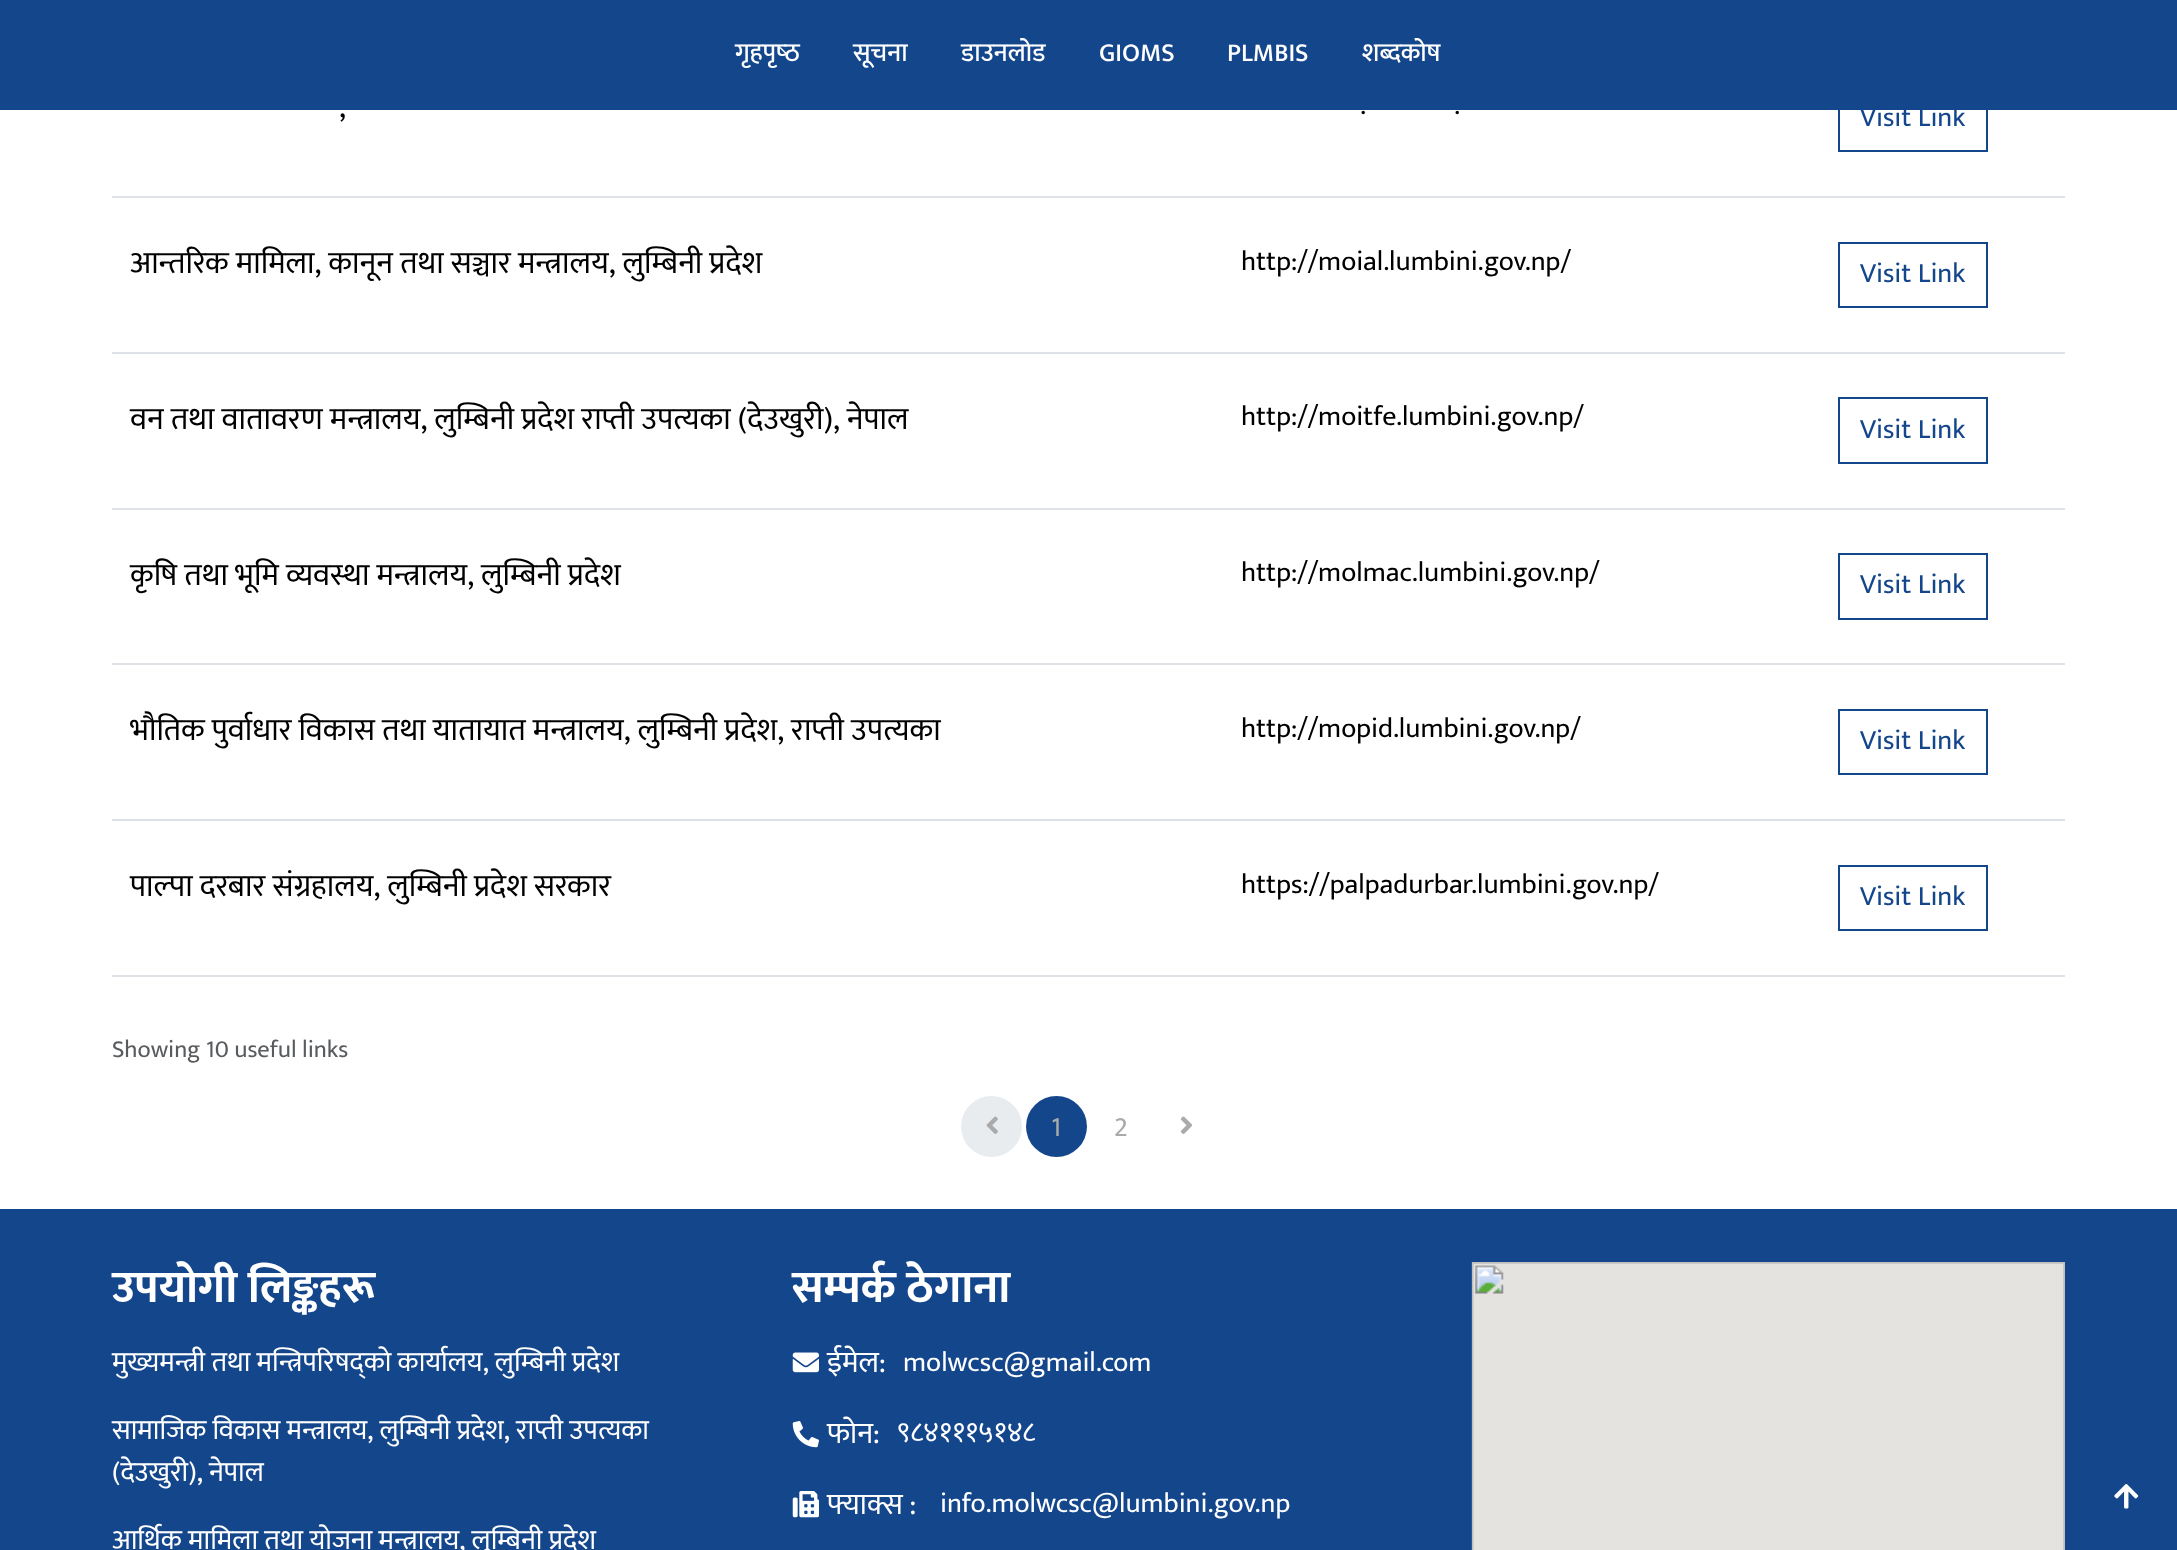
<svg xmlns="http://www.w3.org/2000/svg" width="2177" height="1550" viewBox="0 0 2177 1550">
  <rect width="100%" height="100%" fill="rgb(255,255,255)"/>
  <rect x="1839" y="87" width="148" height="64" fill="none" stroke="rgb(20,70,140)" stroke-width="2"/>
  <rect x="0" y="0" width="2177" height="110" fill="rgb(20,70,140)"/>
  <g font-family="Mukta" font-size="26" font-weight="500" fill="rgb(255,255,255)">
    <text x="735" y="61">गृहपृष्‍ठ</text>
    <text x="853" y="61">सूचना</text>
    <text x="961" y="61">डाउनलोड</text>
    <text x="1099" y="61">GIOMS</text>
    <text x="1227" y="61">PLMBIS</text>
    <text x="1362" y="61">शब्दकोष</text>
  </g>
  <g font-family="Mukta" font-size="28" fill="rgb(0,0,0)">
    <text x="1360" y="114">.</text>
    <text x="1454" y="114">.</text>
  </g>
  <rect x="112" y="196" width="1953" height="2" fill="rgb(222,226,230)"/>
  <text x="1860" y="126" font-family="Mukta" font-size="28" fill="rgb(20,70,140)">Visit Link</text>
  <g font-family="Mukta" font-size="31.5" fill="rgb(0,0,0)">
    <text x="339" y="117">,</text>
    <text x="130" y="273">आन्तरिक मामिला, कानून तथा सञ्चार मन्त्रालय, लुम्बिनी प्रदेश</text>
  </g>
  <text x="1241" y="270" font-family="Mukta" font-size="28" fill="rgb(0,0,0)">http://moial.lumbini.gov.np/</text>
  <rect x="112" y="352" width="1953" height="2" fill="rgb(222,226,230)"/>
  <rect x="1839" y="243" width="148" height="64" fill="none" stroke="rgb(20,70,140)" stroke-width="2"/>
  <text x="1860" y="282" font-family="Mukta" font-size="28" fill="rgb(20,70,140)">Visit Link</text>
  <text x="130" y="429" font-family="Mukta" font-size="31.5" fill="rgb(0,0,0)">वन तथा वातावरण मन्त्रालय, लुम्बिनी प्रदेश राप्ती उपत्यका (देउखुरी), नेपाल</text>
  <text x="1241" y="425" font-family="Mukta" font-size="28" fill="rgb(0,0,0)">http://moitfe.lumbini.gov.np/</text>
  <rect x="112" y="508" width="1953" height="2" fill="rgb(222,226,230)"/>
  <rect x="1839" y="398" width="148" height="65" fill="none" stroke="rgb(20,70,140)" stroke-width="2"/>
  <text x="1860" y="438" font-family="Mukta" font-size="28" fill="rgb(20,70,140)">Visit Link</text>
  <text x="130" y="585" font-family="Mukta" font-size="31.5" fill="rgb(0,0,0)">कृषि तथा भूमि व्यवस्था मन्त्रालय, लुम्बिनी प्रदेश</text>
  <text x="1241" y="581" font-family="Mukta" font-size="28" fill="rgb(0,0,0)">http://molmac.lumbini.gov.np/</text>
  <rect x="112" y="663" width="1953" height="2" fill="rgb(222,226,230)"/>
  <rect x="1839" y="554" width="148" height="65" fill="none" stroke="rgb(20,70,140)" stroke-width="2"/>
  <text x="1860" y="593" font-family="Mukta" font-size="28" fill="rgb(20,70,140)">Visit Link</text>
  <text x="130" y="740" font-family="Mukta" font-size="31.5" fill="rgb(0,0,0)">भौतिक पुर्वाधार विकास तथा यातायात मन्त्रालय, लुम्बिनी प्रदेश, राप्ती उपत्यका</text>
  <text x="1241" y="737" font-family="Mukta" font-size="28" fill="rgb(0,0,0)">http://mopid.lumbini.gov.np/</text>
  <rect x="112" y="819" width="1953" height="2" fill="rgb(222,226,230)"/>
  <rect x="1839" y="710" width="148" height="64" fill="none" stroke="rgb(20,70,140)" stroke-width="2"/>
  <text x="1860" y="749" font-family="Mukta" font-size="28" fill="rgb(20,70,140)">Visit Link</text>
  <text x="130" y="896" font-family="Mukta" font-size="31.5" fill="rgb(0,0,0)">पाल्पा दरबार संग्रहालय, लुम्बिनी प्रदेश सरकार</text>
  <text x="1241" y="893" font-family="Mukta" font-size="28" fill="rgb(0,0,0)">https://palpadurbar.lumbini.gov.np/</text>
  <rect x="112" y="975" width="1953" height="2" fill="rgb(222,226,230)"/>
  <rect x="1839" y="866" width="148" height="64" fill="none" stroke="rgb(20,70,140)" stroke-width="2"/>
  <text x="1860" y="905" font-family="Mukta" font-size="28" fill="rgb(20,70,140)">Visit Link</text>
  <text x="112" y="1057" font-family="Mukta" font-size="24.5" fill="rgb(89,92,95)">Showing 10 useful links</text>
  <circle cx="991.5" cy="1126.5" r="30.5" fill="rgb(233,236,239)"/>
  <image x="986" y="1116" width="12" height="18" href="pic1.png"/>
  <circle cx="1056.5" cy="1126.5" r="30.5" fill="rgb(20,70,140)"/>
  <g font-family="Mukta" font-size="28" fill="rgb(170,170,170)">
    <text x="1051" y="1136">1</text>
    <text x="1114" y="1136">2</text>
  </g>
  <image x="1180" y="1116" width="13" height="18" href="pic2.png"/>
  <rect x="0" y="1209" width="2177" height="341" fill="rgb(20,70,140)"/>
  <text x="112" y="1302" font-family="Mukta" font-size="45.5" font-weight="bold" fill="rgb(255,255,255)">उपयोगी लिङ्कहरू</text>
  <g font-family="Mukta" font-size="28" fill="rgb(255,255,255)">
    <text x="112" y="1371">मुख्यमन्त्री तथा मन्त्रिपरिषद्को कार्यालय, लुम्बिनी प्रदेश</text>
    <text>
      <tspan x="112" y="1439">सामाजिक विकास मन्त्रालय, लुम्बिनी प्रदेश, राप्ती उपत्यका</tspan>
      <tspan x="112" y="1481">(देउखुरी), नेपाल</tspan>
    </text>
    <text x="112" y="1549">आर्थिक मामिला तथा योजना मन्त्रालय, लुम्बिनी प्रदेश</text>
  </g>
  <text x="792" y="1302" font-family="Mukta" font-size="45.5" font-weight="bold" fill="rgb(255,255,255)">सम्पर्क ठेगाना</text>
  <image x="792" y="1352" width="27" height="21" href="pic3.png"/>
  <text x="827" y="1372" font-family="Mukta" font-size="30" fill="rgb(255,255,255)">ईमेल:</text>
  <text x="903" y="1371" font-family="Mukta" font-size="28" fill="rgb(255,255,255)">molwcsc@gmail.com</text>
  <image x="792" y="1421" width="27" height="27" href="pic4.png"/>
  <text x="827" y="1443" font-family="Mukta" font-size="30" fill="rgb(255,255,255)">फोन:</text>
  <text x="897" y="1441" font-family="Mukta" font-size="28" fill="rgb(255,255,255)">९८४१११५१४८</text>
  <image x="792" y="1491" width="27" height="27" href="pic5.png"/>
  <text x="827" y="1514" font-family="Mukta" font-size="30" fill="rgb(255,255,255)">फ्याक्स :</text>
  <text x="940" y="1512" font-family="Mukta" font-size="28" fill="rgb(255,255,255)">info.molwcsc@lumbini.gov.np</text>
  <image x="1471" y="1262" width="594" height="288" href="pic6.png"/>
  <image x="2114" y="1484" width="25" height="25" href="pic7.png"/>
</svg>
